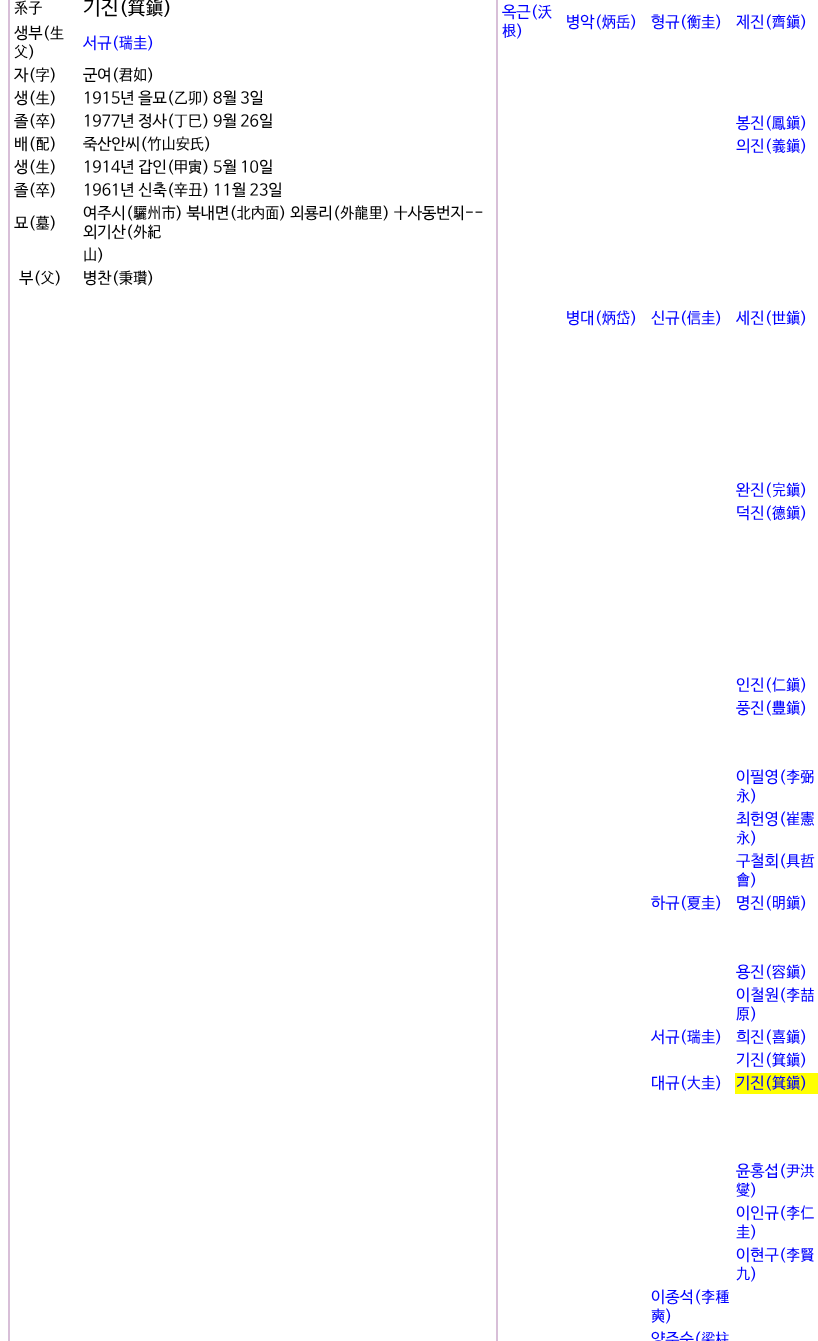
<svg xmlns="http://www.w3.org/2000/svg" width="818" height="1341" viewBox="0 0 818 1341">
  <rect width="100%" height="100%" fill="rgb(255,255,255)"/>
  <rect x="8.5" y="-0.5" width="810" height="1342" fill="none" stroke="rgb(216,191,216)"/>
  <rect x="9.5" y="-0.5" width="487" height="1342" fill="none" stroke="rgb(216,191,216)"/>
  <text x="14" y="13" font-family="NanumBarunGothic" font-size="16" fill="rgb(0,0,0)">系子</text>
  <text x="83" y="14" font-family="NanumBarunGothic" font-size="20" fill="rgb(0,0,0)">기진(箕鎭)</text>
  <g font-family="NanumBarunGothic" font-size="16" fill="rgb(0,0,0)">
    <text>
      <tspan x="14" y="38">생부(生</tspan>
      <tspan x="14" y="57">父)</tspan>
    </text>
  </g>
  <text x="83" y="48" font-family="NanumBarunGothic" font-size="16" fill="rgb(0,0,255)">서규(瑞圭)</text>
  <g font-family="NanumBarunGothic" font-size="16" fill="rgb(0,0,0)">
    <text x="14" y="80">자(字)</text>
    <text x="83" y="80">군여(君如)</text>
    <text x="14" y="103">생(生)</text>
    <text x="83" y="103">1915년 을묘(乙卯) 8월 3일</text>
    <text x="14" y="126">졸(卒)</text>
    <text x="83" y="126">1977년 정사(丁巳) 9월 26일</text>
    <text x="14" y="149">배(配)</text>
    <text x="83" y="149">죽산안씨(竹山安氏)</text>
    <text x="14" y="172">생(生)</text>
    <text x="83" y="172">1914년 갑인(甲寅) 5월 10일</text>
    <text x="14" y="195">졸(卒)</text>
    <text x="83" y="195">1961년 신축(辛丑) 11월 23일</text>
    <text x="14" y="228">묘(墓)</text>
    <text>
      <tspan x="83" y="218">여주시(驪州市) 북내면(北內面) 외룡리(外龍里) 十사동번지--</tspan>
      <tspan x="83" y="237">외기산(外紀</tspan>
      <tspan x="83" y="260">山)</tspan>
    </text>
    <text x="19" y="283">부(父)</text>
    <text x="83" y="283">병찬(秉瓚)</text>
  </g>
  <rect x="497.5" y="-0.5" width="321" height="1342" fill="none" stroke="rgb(216,191,216)"/>
  <g font-family="NanumBarunGothic" font-size="16" fill="rgb(0,0,255)">
    <text>
      <tspan x="502" y="17">옥근(沃</tspan>
      <tspan x="502" y="36">根)</tspan>
    </text>
    <text x="566" y="27">병악(炳岳)</text>
    <text x="651" y="27">형규(衡圭)</text>
    <text x="736" y="27">제진(齊鎭)</text>
    <text>
      <tspan x="736" y="128">봉진(鳳鎭)</tspan>
      <tspan x="736" y="151">의진(義鎭)</tspan>
    </text>
    <text x="566" y="323">병대(炳岱)</text>
    <text x="651" y="323">신규(信圭)</text>
    <text x="736" y="323">세진(世鎭)</text>
    <text>
      <tspan x="736" y="495">완진(完鎭)</tspan>
      <tspan x="736" y="518">덕진(德鎭)</tspan>
    </text>
    <text>
      <tspan x="736" y="690">인진(仁鎭)</tspan>
      <tspan x="736" y="713">풍진(豊鎭)</tspan>
    </text>
    <text>
      <tspan x="736" y="782">이필영(李弼</tspan>
      <tspan x="736" y="801">永)</tspan>
      <tspan x="736" y="824">최헌영(崔憲</tspan>
      <tspan x="736" y="843">永)</tspan>
      <tspan x="736" y="866">구철회(具哲</tspan>
      <tspan x="736" y="885">會)</tspan>
    </text>
    <text x="651" y="908">하규(夏圭)</text>
    <text x="736" y="908">명진(明鎭)</text>
    <text>
      <tspan x="736" y="977">용진(容鎭)</tspan>
      <tspan x="736" y="1000">이철원(李喆</tspan>
      <tspan x="736" y="1019">原)</tspan>
    </text>
    <text x="651" y="1042">서규(瑞圭)</text>
    <text>
      <tspan x="736" y="1042">희진(喜鎭)</tspan>
      <tspan x="736" y="1065">기진(箕鎭)</tspan>
    </text>
    <text x="651" y="1088">대규(大圭)</text>
  </g>
  <rect x="735" y="1073" width="83" height="21" fill="rgb(255,255,0)"/>
  <g font-family="NanumBarunGothic" font-size="16" fill="rgb(0,0,255)">
    <text x="736" y="1088">기진(箕鎭)</text>
    <text>
      <tspan x="736" y="1176">윤홍섭(尹洪</tspan>
      <tspan x="736" y="1195">燮)</tspan>
      <tspan x="736" y="1218">이인규(李仁</tspan>
      <tspan x="736" y="1237">圭)</tspan>
      <tspan x="736" y="1260">이현구(李賢</tspan>
      <tspan x="736" y="1279">九)</tspan>
    </text>
    <text>
      <tspan x="651" y="1302">이종석(李種</tspan>
      <tspan x="651" y="1321">奭)</tspan>
      <tspan x="651" y="1344">양주순(梁柱</tspan>
    </text>
  </g>
</svg>
